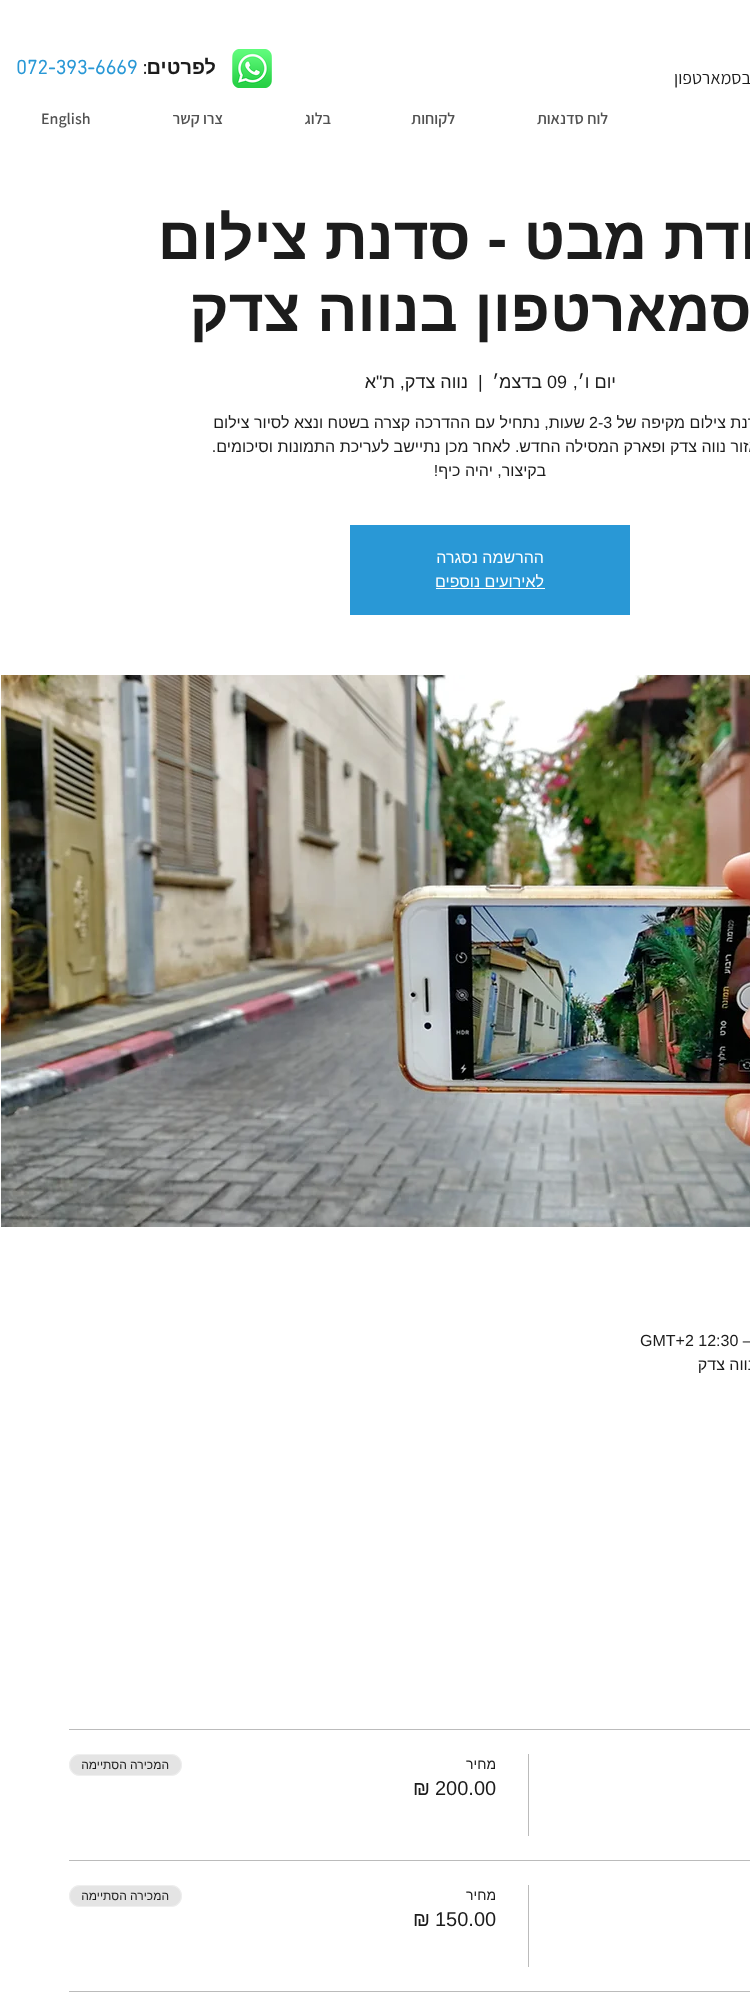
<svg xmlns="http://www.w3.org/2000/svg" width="750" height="2001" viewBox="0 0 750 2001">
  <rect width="100%" height="100%" fill="rgb(255,255,255)"/>
  <image x="232" y="49" width="40" height="39" href="pic1.png"/>
  <text x="216" y="74" font-family="Liberation Sans" font-size="20" font-weight="bold" direction="rtl" fill="rgb(28,28,28)">לפרטים</text>
  <text x="147" y="74" font-family="'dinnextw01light'" font-size="20" font-weight="bold" direction="rtl" fill="rgb(28,28,28)">:</text>
  <text x="16" y="74" font-family="'dinnextw01light'" font-size="20" font-weight="bold" fill="rgb(41,152,214)">072-393-6669</text>
  <text x="751" y="84" font-family="Assistant" font-size="18" direction="rtl" fill="rgb(28,28,28)">בסמארטפון</text>
  <g font-family="Assistant" font-size="16" font-weight="600" direction="rtl" fill="rgb(81,81,81)">
    <text x="608" y="124">לוח סדנאות</text>
    <text x="455" y="124">לקוחות</text>
    <text x="331" y="124">בלוג</text>
    <text x="223" y="124">צרו קשר</text>
  </g>
  <text x="41" y="124" font-family="Assistant" font-size="16" font-weight="600" fill="rgb(81,81,81)">English</text>
  <g font-family="Liberation Sans" font-size="60" font-weight="bold" direction="rtl" fill="rgb(28,28,28)">
    <text x="822" y="259">נקודת מבט - סדנת צילום</text>
    <text x="790" y="331">בסמארטפון בנווה צדק</text>
  </g>
  <text x="616" y="388" font-family="Liberation Sans" font-size="18" direction="rtl" fill="rgb(28,28,28)">יום ו׳,</text>
  <text x="547" y="388" font-family="Liberation Sans" font-size="18" fill="rgb(28,28,28)">09</text>
  <text x="542" y="388" font-family="Liberation Sans" font-size="18" direction="rtl" fill="rgb(28,28,28)">בדצמ׳</text>
  <text x="478" y="388" font-family="Liberation Sans" font-size="18" fill="rgb(28,28,28)">|</text>
  <text x="468" y="388" font-family="Liberation Sans" font-size="18" direction="rtl" fill="rgb(28,28,28)">נווה צדק, ת"א</text>
  <text x="767" y="428" font-family="Liberation Sans" font-size="16" direction="rtl" fill="rgb(28,28,28)">סדנת צילום מקיפה של</text>
  <text x="589" y="428" font-family="Liberation Sans" font-size="16" fill="rgb(28,28,28)">2-3</text>
  <g font-family="Liberation Sans" font-size="16" direction="rtl" fill="rgb(28,28,28)">
    <text x="585" y="428">שעות, נתחיל עם ההדרכה קצרה בשטח ונצא לסיור צילום</text>
    <text x="768" y="452">באזור נווה צדק ופארק המסילה החדש. לאחר מכן נתיישב לעריכת התמונות וסיכומים.</text>
    <text x="546" y="476">בקיצור, יהיה כיף!</text>
  </g>
  <rect x="350" y="525" width="280" height="90" fill="rgb(41,152,214)"/>
  <g font-family="Liberation Sans" font-size="16" direction="rtl" fill="rgb(255,255,255)">
    <text>
      <tspan x="544" y="563">ההרשמה נסגרה</tspan>
      <tspan x="544" y="587">לאירועים נוספים</tspan>
    </text>
  </g>
  <rect x="436" y="588" width="109" height="1" fill="rgb(255,255,255)"/>
  <image x="1" y="675" width="749" height="552" href="pic2.png"/>
  <text x="640" y="1346" font-family="Liberation Sans" font-size="16" fill="rgb(28,28,28)">GMT+2 12:30 –</text>
  <text x="754" y="1370" font-family="Liberation Sans" font-size="16" direction="rtl" fill="rgb(28,28,28)">נווה צדק</text>
  <rect x="69" y="1729" width="681" height="1" fill="rgb(187,187,187)"/>
  <rect x="69" y="1860" width="681" height="1" fill="rgb(187,187,187)"/>
  <rect x="528" y="1754" width="1" height="82" fill="rgb(187,187,187)"/>
  <text x="496" y="1769" font-family="Liberation Sans" font-size="14" direction="rtl" fill="rgb(28,28,28)">מחיר</text>
  <text x="435" y="1795" font-family="Liberation Sans" font-size="20" fill="rgb(28,28,28)">200.00</text>
  <text x="430" y="1795" font-family="Liberation Sans" font-size="20" direction="rtl" fill="rgb(28,28,28)">₪</text>
  <rect x="69" y="1754" width="113" height="22" rx="11" fill="rgb(228,228,228)"/>
  <rect x="69.5" y="1754.5" width="112" height="21" rx="10.5" fill="none" stroke="rgba(255,255,255,0.4)"/>
  <text x="169" y="1769" font-family="Liberation Sans" font-size="12" direction="rtl" fill="rgb(28,28,28)">המכירה הסתיימה</text>
  <rect x="69" y="1991" width="681" height="1" fill="rgb(187,187,187)"/>
  <rect x="528" y="1885" width="1" height="82" fill="rgb(187,187,187)"/>
  <text x="496" y="1900" font-family="Liberation Sans" font-size="14" direction="rtl" fill="rgb(28,28,28)">מחיר</text>
  <text x="435" y="1926" font-family="Liberation Sans" font-size="20" fill="rgb(28,28,28)">150.00</text>
  <text x="430" y="1926" font-family="Liberation Sans" font-size="20" direction="rtl" fill="rgb(28,28,28)">₪</text>
  <rect x="69" y="1885" width="113" height="22" rx="11" fill="rgb(228,228,228)"/>
  <rect x="69.5" y="1885.5" width="112" height="21" rx="10.5" fill="none" stroke="rgba(255,255,255,0.4)"/>
  <text x="169" y="1900" font-family="Liberation Sans" font-size="12" direction="rtl" fill="rgb(28,28,28)">המכירה הסתיימה</text>
</svg>
